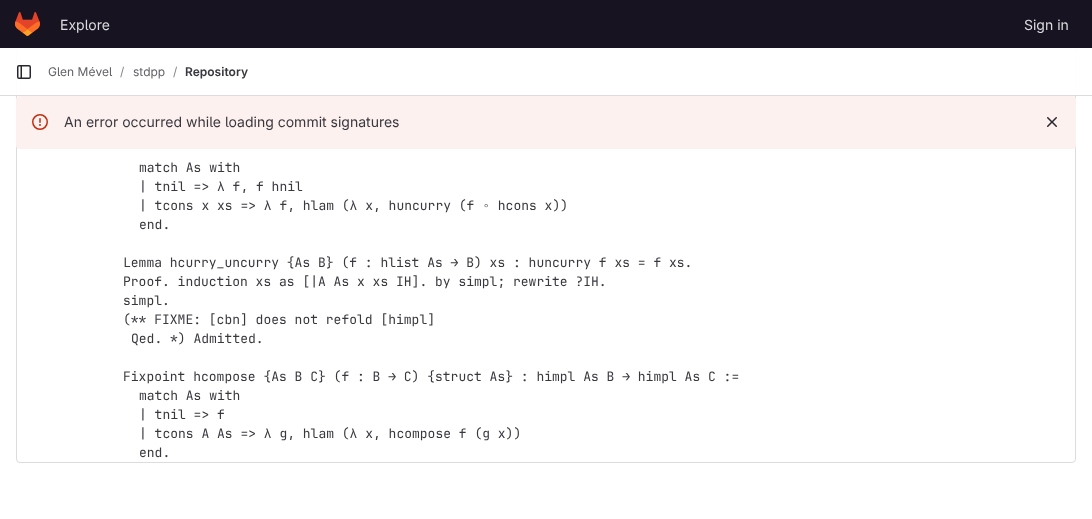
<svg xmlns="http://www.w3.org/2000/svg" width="1092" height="519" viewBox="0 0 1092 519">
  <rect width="100%" height="100%" fill="rgb(255,255,255)"/>
  <rect x="16.5" y="-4.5" width="1059" height="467" rx="3.5" fill="none" stroke="rgb(220,220,222)"/>
  <rect x="0" y="0" width="1092" height="48" fill="rgb(23,19,33)"/>
  <image x="15" y="12" width="25" height="24" href="pic1.png"/>
  <g font-family="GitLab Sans" font-size="14" fill="rgb(220,220,222)">
    <text x="60" y="30">Explore</text>
    <text x="1024" y="30">Sign in</text>
  </g>
  <rect x="16" y="48" width="1060" height="47" fill="rgba(255,255,255,0.92)"/>
  <rect x="0" y="95" width="1092" height="1" fill="rgb(220,220,222)"/>
  <image x="17" y="65" width="14" height="14" href="pic2.png"/>
  <text x="48" y="76" font-family="GitLab Sans" font-size="12" fill="rgb(98,97,104)">Glen Mével</text>
  <text x="120" y="76" font-family="GitLab Sans" font-size="12" fill="rgb(137,136,141)">/</text>
  <text x="133" y="76" font-family="GitLab Sans" font-size="12" fill="rgb(98,97,104)">stdpp</text>
  <text x="173" y="76" font-family="GitLab Sans" font-size="12" fill="rgb(137,136,141)">/</text>
  <text x="185" y="76" font-family="GitLab Sans" font-size="12" font-weight="600" fill="rgb(58,56,63)">Repository</text>
  <rect x="16" y="96" width="1060" height="53" rx="4" fill="rgb(252,241,239)"/>
  <image x="32" y="114" width="16" height="16" href="pic3.png"/>
  <text x="64" y="127" font-family="GitLab Sans" font-size="14" fill="rgb(58,56,63)">An error occurred while loading commit signatures</text>
  <image x="1047" y="117" width="10" height="10" href="pic4.png"/>
  <g font-family="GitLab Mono" font-size="13" fill="rgb(58,56,63)">
    <text>
      <tspan x="139" y="172">match As with</tspan>
      <tspan x="139" y="191">| tnil =&gt; λ f, f hnil</tspan>
      <tspan x="139" y="210">| tcons x xs =&gt; λ f, hlam (λ x, huncurry (f ∘ hcons x))</tspan>
      <tspan x="139" y="229">end.</tspan>
    </text>
    <text>
      <tspan x="123" y="267">Lemma hcurry_uncurry {As B} (f : hlist As → B) xs : huncurry f xs = f xs.</tspan>
      <tspan x="123" y="286">Proof. induction xs as [|A As x xs IH]. by simpl; rewrite ?IH.</tspan>
      <tspan x="123" y="305">simpl.</tspan>
      <tspan x="123" y="324">(** FIXME: [cbn] does not refold [himpl]</tspan>
    </text>
    <text x="131" y="343">Qed. *) Admitted.</text>
    <text x="123" y="381">Fixpoint hcompose {As B C} (f : B → C) {struct As} : himpl As B → himpl As C :=</text>
    <text>
      <tspan x="139" y="400">match As with</tspan>
      <tspan x="139" y="419">| tnil =&gt; f</tspan>
      <tspan x="139" y="438">| tcons A As =&gt; λ g, hlam (λ x, hcompose f (g x))</tspan>
      <tspan x="139" y="457">end.</tspan>
    </text>
  </g>
</svg>
